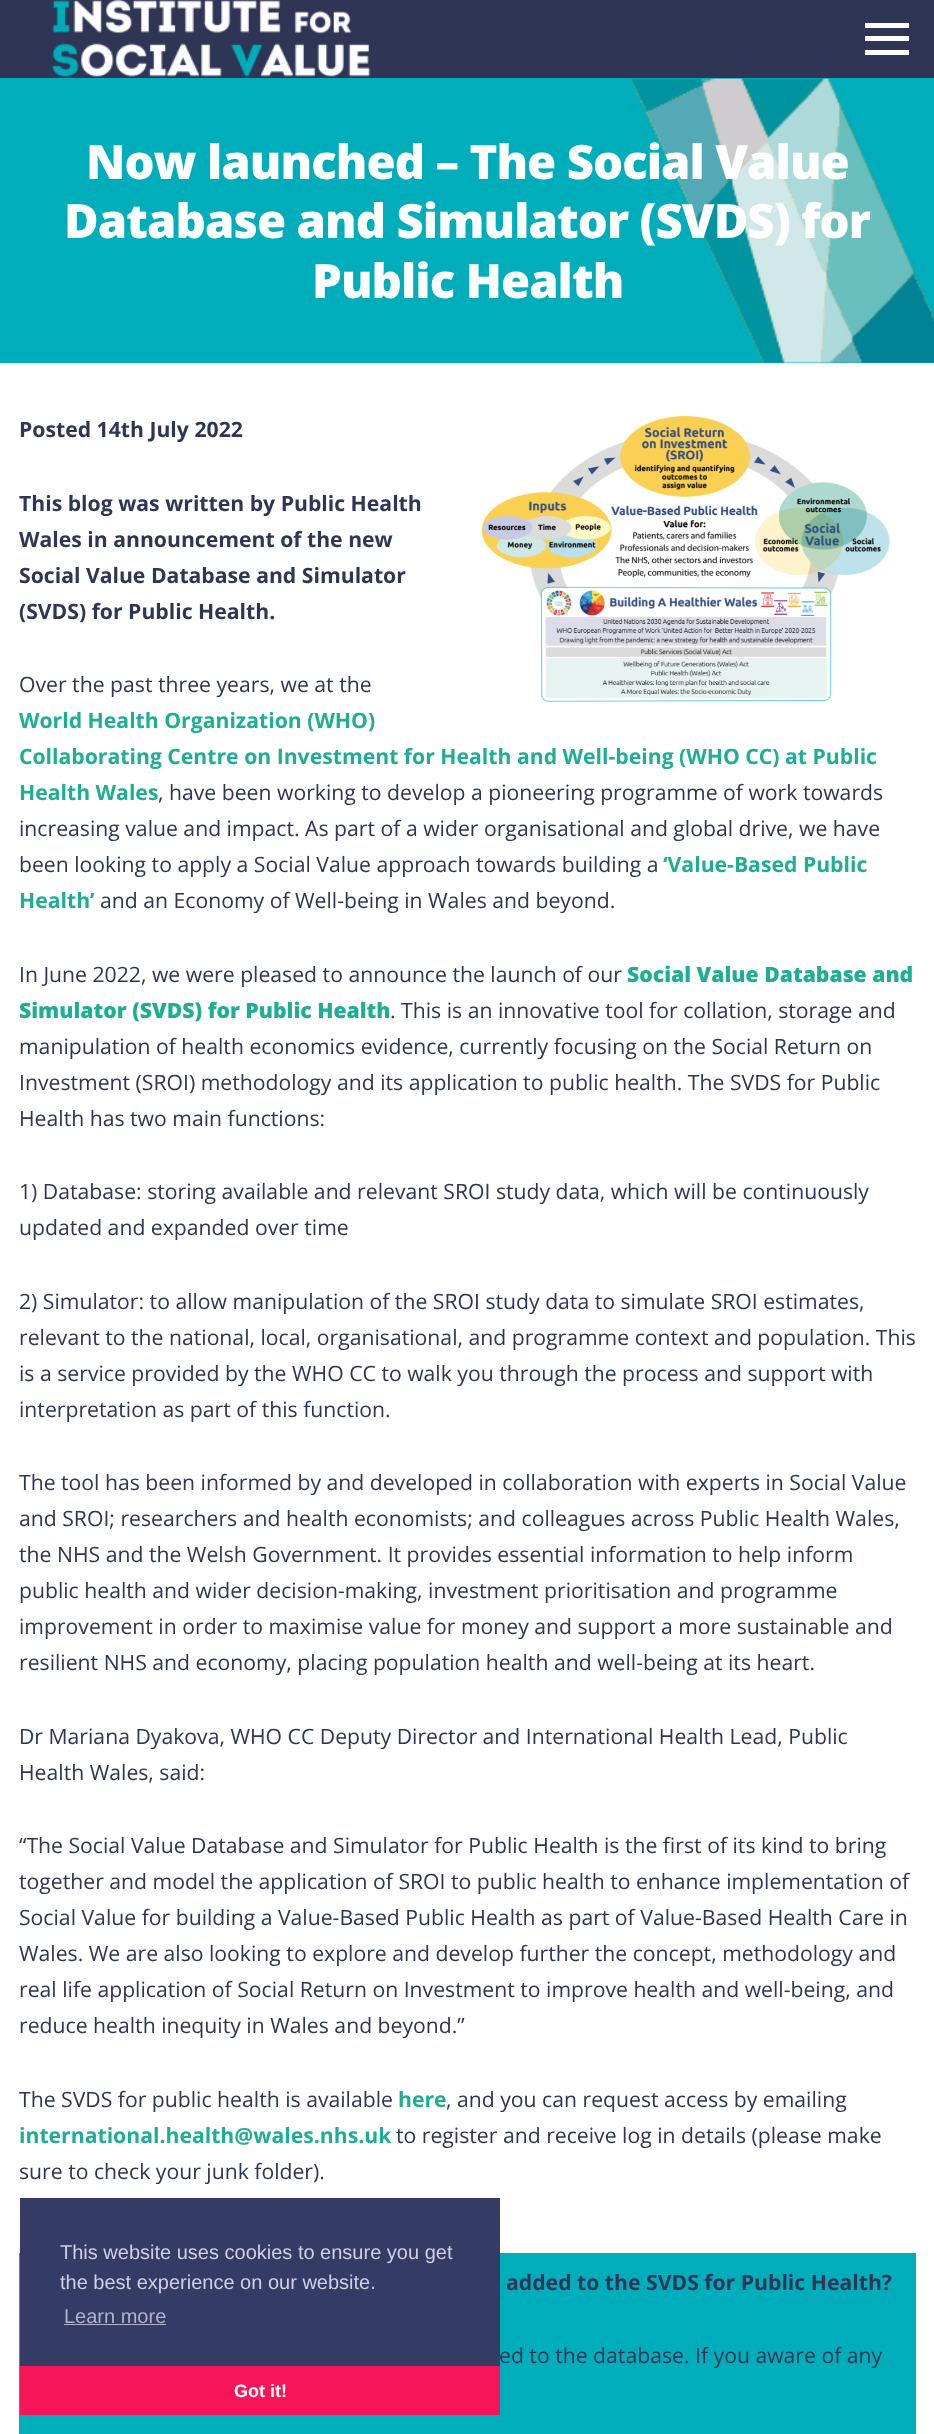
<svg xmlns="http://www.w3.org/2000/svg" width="934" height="2434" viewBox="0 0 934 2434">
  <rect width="100%" height="100%" fill="rgb(255,255,255)"/>
  <rect x="0" y="0" width="934" height="78" fill="rgb(46,53,85)"/>
  <rect x="0" y="78" width="934" height="285" fill="rgb(0,173,186)"/>
  <image x="52" y="0" width="319" height="77" href="pic1.png"/>
  <rect x="865" y="36" width="44" height="5" fill="rgb(255,255,255)"/>
  <rect x="865" y="23" width="44" height="5" fill="rgb(255,255,255)"/>
  <rect x="865" y="50" width="44" height="5" fill="rgb(255,255,255)"/>
  <image x="629" y="78" width="305" height="285" href="pic2.png"/>
  <g font-family="Open Sans" font-size="47.25" font-weight="800" letter-spacing="-0.95" fill="rgb(255,255,255)">
    <text x="86" y="179">Now launched – The Social Value</text>
    <text x="64" y="238">Database and Simulator (SVDS) for</text>
    <text x="312" y="298">Public Health</text>
  </g>
  <text x="19" y="437" font-family="Open Sans" font-size="21.2" font-weight="bold" fill="rgb(46,53,85)">Posted 14th July 2022</text>
  <image x="481" y="415" width="409" height="287" href="pic3.png"/>
  <g font-family="Open Sans" font-size="21.2" font-weight="bold" fill="rgb(46,53,85)">
    <text>
      <tspan x="19" y="511">This blog was written by Public Health</tspan>
      <tspan x="19" y="547">Wales in announcement of the new</tspan>
      <tspan x="19" y="583">Social Value Database and Simulator</tspan>
      <tspan x="19" y="619">(SVDS) for Public Health.</tspan>
    </text>
  </g>
  <text x="19" y="692" font-family="Open Sans" font-size="21.2" fill="rgb(46,53,85)">Over the past three years, we at the</text>
  <g font-family="Open Sans" font-size="21.2" font-weight="bold" fill="rgb(30,174,148)">
    <text>
      <tspan x="19" y="728">World Health Organization (WHO)</tspan>
      <tspan x="19" y="764">Collaborating Centre on Investment for Health and Well-being (WHO CC) at Public</tspan>
      <tspan x="19" y="800">Health Wales</tspan>
    </text>
  </g>
  <g font-family="Open Sans" font-size="21.2" fill="rgb(46,53,85)">
    <text x="158" y="800">, have been working to develop a pioneering programme of work towards</text>
    <text>
      <tspan x="19" y="836">increasing value and impact. As part of a wider organisational and global drive, we have</tspan>
      <tspan x="19" y="872">been looking to apply a Social Value approach towards building a</tspan>
    </text>
  </g>
  <g font-family="Open Sans" font-size="21.2" font-weight="bold" fill="rgb(30,174,148)">
    <text x="663" y="872">‘Value-Based Public</text>
    <text x="19" y="908">Health’</text>
  </g>
  <g font-family="Open Sans" font-size="21.2" fill="rgb(46,53,85)">
    <text x="100" y="908">and an Economy of Well-being in Wales and beyond.</text>
    <text x="19" y="982">In June 2022, we were pleased to announce the launch of our</text>
  </g>
  <g font-family="Open Sans" font-size="21.2" font-weight="800" fill="rgb(30,174,148)">
    <text x="627" y="982">Social Value Database and</text>
    <text x="19" y="1018">Simulator (SVDS) for Public Health</text>
  </g>
  <g font-family="Open Sans" font-size="21.2" fill="rgb(46,53,85)">
    <text x="390" y="1018">. This is an innovative tool for collation, storage and</text>
    <text>
      <tspan x="19" y="1054">manipulation of health economics evidence, currently focusing on the Social Return on</tspan>
      <tspan x="19" y="1090">Investment (SROI) methodology and its application to public health. The SVDS for Public</tspan>
      <tspan x="19" y="1126">Health has two main functions:</tspan>
    </text>
    <text>
      <tspan x="19" y="1199">1) Database: storing available and relevant SROI study data, which will be continuously</tspan>
      <tspan x="19" y="1235">updated and expanded over time</tspan>
    </text>
    <text>
      <tspan x="19" y="1309">2) Simulator: to allow manipulation of the SROI study data to simulate SROI estimates,</tspan>
      <tspan x="19" y="1345">relevant to the national, local, organisational, and programme context and population. This</tspan>
      <tspan x="19" y="1381">is a service provided by the WHO CC to walk you through the process and support with</tspan>
      <tspan x="19" y="1417">interpretation as part of this function.</tspan>
    </text>
    <text>
      <tspan x="19" y="1490">The tool has been informed by and developed in collaboration with experts in Social Value</tspan>
      <tspan x="19" y="1526">and SROI; researchers and health economists; and colleagues across Public Health Wales,</tspan>
      <tspan x="19" y="1562">the NHS and the Welsh Government. It provides essential information to help inform</tspan>
      <tspan x="19" y="1598">public health and wider decision-making, investment prioritisation and programme</tspan>
      <tspan x="19" y="1634">improvement in order to maximise value for money and support a more sustainable and</tspan>
      <tspan x="19" y="1670">resilient NHS and economy, placing population health and well-being at its heart.</tspan>
    </text>
    <text>
      <tspan x="19" y="1744">Dr Mariana Dyakova, WHO CC Deputy Director and International Health Lead, Public</tspan>
      <tspan x="19" y="1780">Health Wales, said:</tspan>
    </text>
    <text>
      <tspan x="19" y="1853">“The Social Value Database and Simulator for Public Health is the first of its kind to bring</tspan>
      <tspan x="19" y="1889">together and model the application of SROI to public health to enhance implementation of</tspan>
      <tspan x="19" y="1925">Social Value for building a Value-Based Public Health as part of Value-Based Health Care in</tspan>
      <tspan x="19" y="1961">Wales. We are also looking to explore and develop further the concept, methodology and</tspan>
      <tspan x="19" y="1997">real life application of Social Return on Investment to improve health and well-being, and</tspan>
      <tspan x="19" y="2033">reduce health inequity in Wales and beyond.”</tspan>
    </text>
    <text x="19" y="2107">The SVDS for public health is available</text>
  </g>
  <text x="398" y="2107" font-family="Open Sans" font-size="21.2" font-weight="bold" fill="rgb(30,174,148)">here</text>
  <text x="446" y="2107" font-family="Open Sans" font-size="21.2" fill="rgb(46,53,85)">, and you can request access by emailing</text>
  <text x="19" y="2143" font-family="Open Sans" font-size="21.2" font-weight="bold" fill="rgb(30,174,148)">international.health@wales.nhs.uk</text>
  <g font-family="Open Sans" font-size="21.2" fill="rgb(46,53,85)">
    <text x="396" y="2143">to register and receive log in details (please make</text>
    <text x="19" y="2179">sure to check your junk folder).</text>
  </g>
  <rect x="19" y="2253" width="897" height="181" fill="rgb(0,173,186)"/>
  <text x="506" y="2290" font-family="Open Sans" font-size="21.2" font-weight="bold" fill="rgb(46,53,85)">added to the SVDS for Public Health?</text>
  <text x="499" y="2363" font-family="Open Sans" font-size="21.2" fill="rgb(46,53,85)">ed to the database. If you aware of any</text>
  <rect x="20" y="2198" width="480" height="168" fill="rgb(52,60,102)"/>
  <g font-family="Liberation Sans" font-size="20" fill="rgb(207,207,232)">
    <text>
      <tspan x="60" y="2259">This website uses cookies to ensure you get</tspan>
      <tspan x="60" y="2289">the best experience on our website.</tspan>
    </text>
  </g>
  <text x="64" y="2323" font-family="Liberation Sans" font-size="20" fill="rgb(176,178,206)">Learn more</text>
  <rect x="64" y="2324" width="102" height="1" fill="rgb(176,178,206)"/>
  <rect x="20" y="2366" width="480" height="49" fill="rgb(247,21,89)"/>
  <text x="234" y="2397" font-family="Liberation Sans" font-size="18" font-weight="bold" fill="rgb(255,255,255)">Got it!</text>
</svg>
